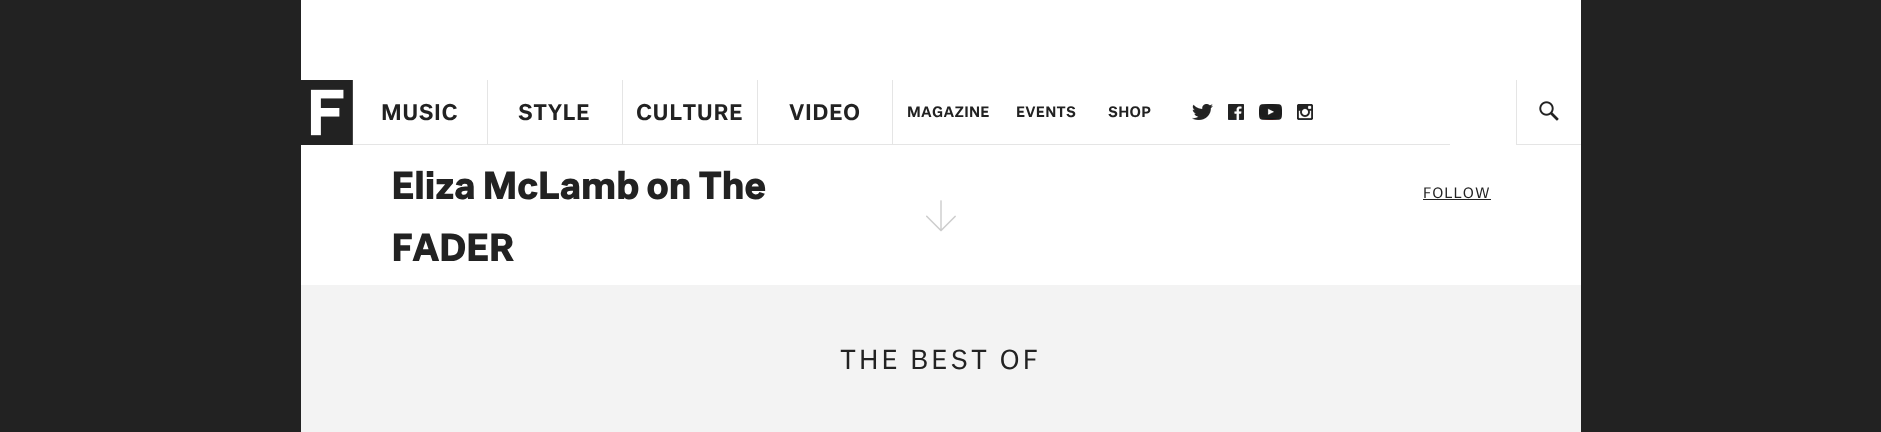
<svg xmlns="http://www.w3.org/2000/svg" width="1881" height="432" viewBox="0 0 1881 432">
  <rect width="100%" height="100%" fill="rgb(34,34,34)"/>
  <rect x="301" y="0" width="1280" height="285" fill="rgb(255,255,255)"/>
  <rect x="352" y="80" width="1" height="65" fill="rgb(68,68,68)"/>
  <image x="301" y="80" width="51" height="65" href="pic1.png"/>
  <rect x="487" y="80" width="1" height="65" fill="rgb(229,229,229)"/>
  <rect x="353" y="144" width="135" height="1" fill="rgb(229,229,229)"/>
  <text x="381" y="120" font-family="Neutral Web" font-size="21" font-weight="500" letter-spacing="0.5" fill="rgb(34,34,34)">MUSIC</text>
  <rect x="622" y="80" width="1" height="65" fill="rgb(229,229,229)"/>
  <rect x="488" y="144" width="135" height="1" fill="rgb(229,229,229)"/>
  <text x="518" y="120" font-family="Neutral Web" font-size="21" font-weight="500" letter-spacing="0.5" fill="rgb(34,34,34)">STYLE</text>
  <rect x="757" y="80" width="1" height="65" fill="rgb(229,229,229)"/>
  <rect x="623" y="144" width="135" height="1" fill="rgb(229,229,229)"/>
  <text x="636" y="120" font-family="Neutral Web" font-size="21" font-weight="500" letter-spacing="0.5" fill="rgb(34,34,34)">CULTURE</text>
  <rect x="892" y="80" width="1" height="65" fill="rgb(229,229,229)"/>
  <rect x="758" y="144" width="692" height="1" fill="rgb(229,229,229)"/>
  <text x="789" y="120" font-family="Neutral Web" font-size="21" font-weight="500" letter-spacing="0.5" fill="rgb(34,34,34)">VIDEO</text>
  <g font-family="Neutral Web" font-size="14" font-weight="500" letter-spacing="0.25" fill="rgb(34,34,34)">
    <text x="907" y="117">MAGAZINE</text>
    <text x="1016" y="117">EVENTS</text>
    <text x="1108" y="117">SHOP</text>
  </g>
  <image x="1192" y="104" width="21" height="16" href="pic2.png"/>
  <image x="1228" y="104" width="16" height="16" href="pic3.png"/>
  <image x="1259" y="104" width="23" height="16" href="pic4.png"/>
  <image x="1297" y="104" width="16" height="16" href="pic5.png"/>
  <rect x="1516" y="144" width="65" height="1" fill="rgb(229,229,229)"/>
  <rect x="1516" y="80" width="1" height="65" fill="rgb(229,229,229)"/>
  <image x="1539" y="101" width="20" height="20" href="pic6.png"/>
  <rect x="301" y="285" width="1280" height="147" fill="rgb(243,243,243)"/>
  <g font-family="Neutral Web" font-size="35" font-weight="bold" fill="rgb(34,34,34)">
    <text>
      <tspan x="391" y="199">Eliza McLamb on The</tspan>
      <tspan x="391" y="261">FADER</tspan>
    </text>
  </g>
  <text x="1423" y="198" font-family="Neutral Web" font-size="14" letter-spacing="1" fill="rgb(34,34,34)">FOLLOW</text>
  <rect x="1423" y="199" width="68" height="1" fill="rgb(34,34,34)"/>
  <image x="926" y="200" width="30" height="32" href="pic7.png"/>
  <text x="840" y="369" font-family="Neutral Web" font-size="25.5" letter-spacing="3" fill="rgb(34,34,34)">THE BEST OF</text>
</svg>
